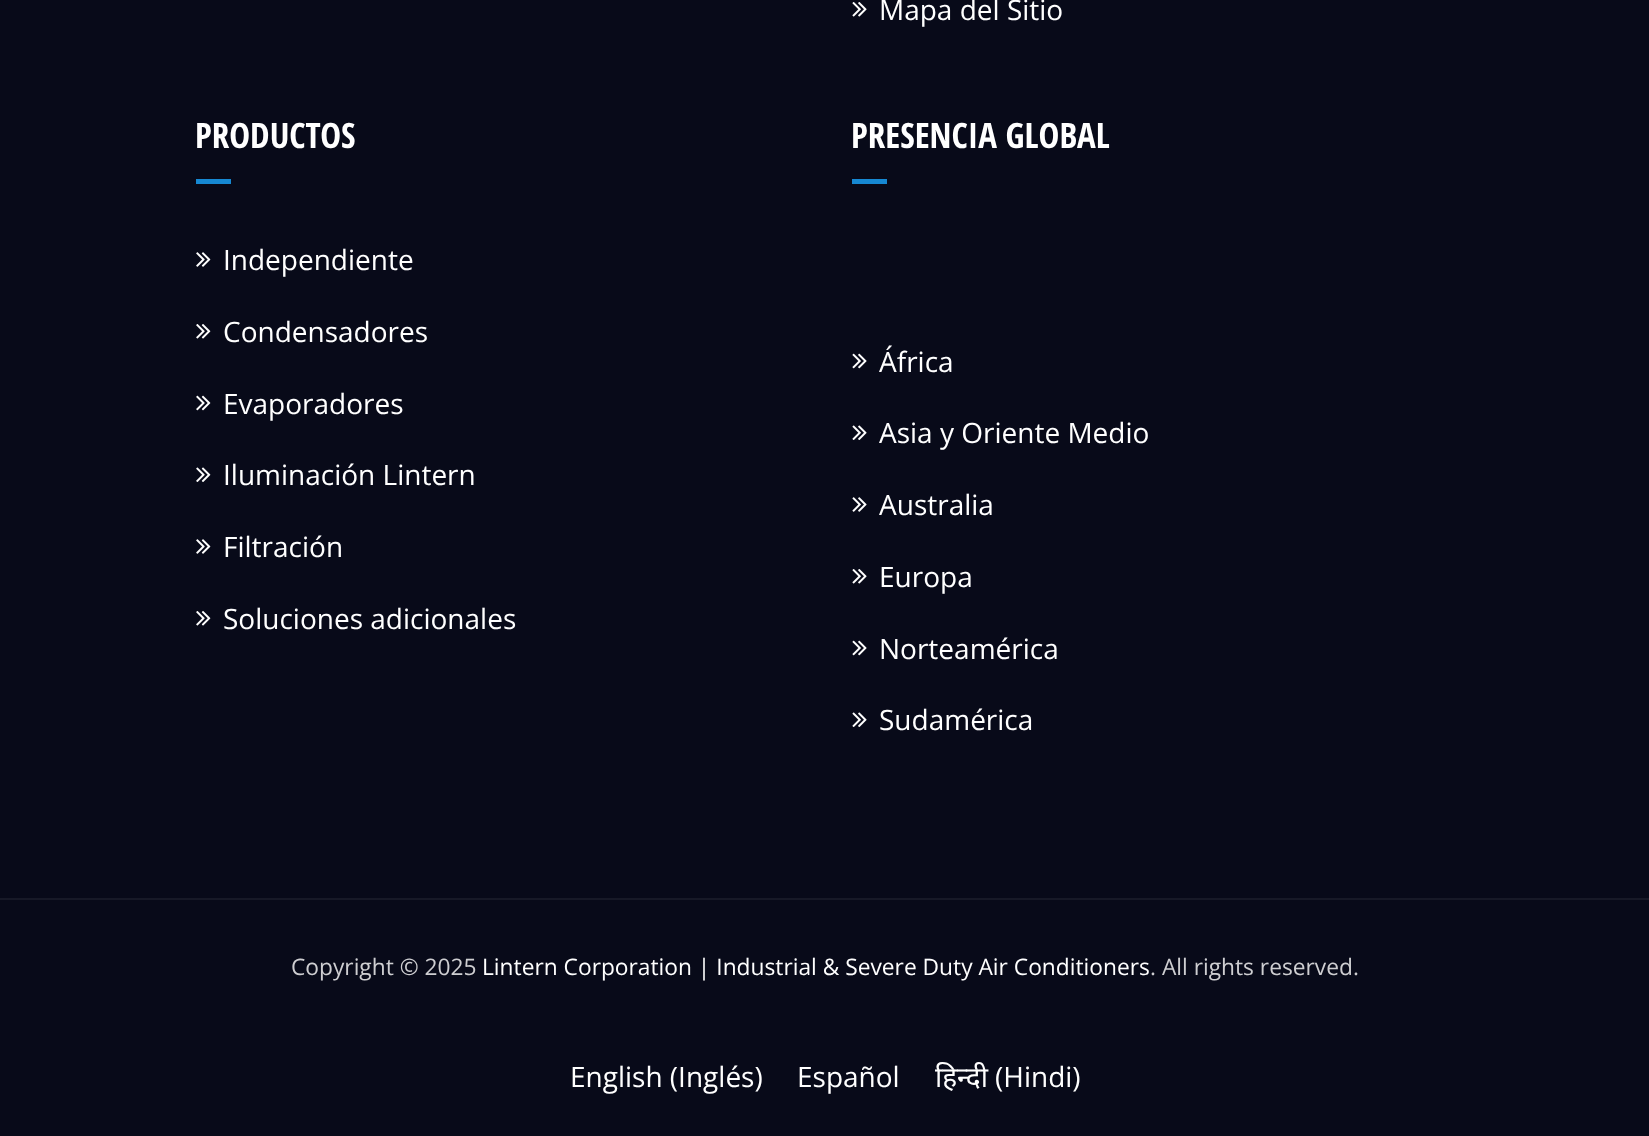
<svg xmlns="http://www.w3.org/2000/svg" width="1649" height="1136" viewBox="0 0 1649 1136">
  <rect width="100%" height="100%" fill="rgb(8,10,25)"/>
  <rect x="0" y="898" width="1649" height="2" fill="rgb(23,25,39)"/>
  <image x="852" y="2" width="15" height="15" href="pic1.png"/>
  <text x="879" y="20" font-family="Open Sans" font-size="28" fill="rgb(255,255,255)">Mapa del Sitio</text>
  <text x="195" y="148" font-family="Open Sans Condensed" font-size="35" font-weight="bold" fill="rgb(255,255,255)">PRODUCTOS</text>
  <rect x="196" y="179" width="35" height="5" fill="rgb(22,136,210)"/>
  <image x="196" y="252" width="15" height="15" href="pic2.png"/>
  <text x="223" y="270" font-family="Open Sans" font-size="28" fill="rgb(255,255,255)">Independiente</text>
  <image x="196" y="324" width="15" height="15" href="pic3.png"/>
  <text x="223" y="342" font-family="Open Sans" font-size="28" fill="rgb(255,255,255)">Condensadores</text>
  <image x="196" y="395" width="15" height="16" href="pic4.png"/>
  <text x="223" y="414" font-family="Open Sans" font-size="28" fill="rgb(255,255,255)">Evaporadores</text>
  <image x="196" y="467" width="15" height="15" href="pic5.png"/>
  <text x="223" y="485" font-family="Open Sans" font-size="28" fill="rgb(255,255,255)">Iluminación Lintern</text>
  <image x="196" y="539" width="15" height="15" href="pic2.png"/>
  <text x="223" y="557" font-family="Open Sans" font-size="28" fill="rgb(255,255,255)">Filtración</text>
  <image x="196" y="611" width="15" height="15" href="pic3.png"/>
  <text x="223" y="629" font-family="Open Sans" font-size="28" fill="rgb(255,255,255)">Soluciones adicionales</text>
  <text x="851" y="148" font-family="Open Sans Condensed" font-size="35" font-weight="bold" fill="rgb(255,255,255)">PRESENCIA GLOBAL</text>
  <rect x="852" y="179" width="35" height="5" fill="rgb(22,136,210)"/>
  <image x="852" y="353" width="15" height="16" href="pic6.png"/>
  <text x="879" y="372" font-family="Open Sans" font-size="28" fill="rgb(255,255,255)">África</text>
  <image x="852" y="425" width="15" height="15" href="pic7.png"/>
  <text x="879" y="443" font-family="Open Sans" font-size="28" fill="rgb(255,255,255)">Asia y Oriente Medio</text>
  <image x="852" y="497" width="15" height="15" href="pic8.png"/>
  <text x="879" y="515" font-family="Open Sans" font-size="28" fill="rgb(255,255,255)">Australia</text>
  <image x="852" y="569" width="15" height="15" href="pic1.png"/>
  <text x="879" y="587" font-family="Open Sans" font-size="28" fill="rgb(255,255,255)">Europa</text>
  <image x="852" y="640" width="15" height="16" href="pic6.png"/>
  <text x="879" y="659" font-family="Open Sans" font-size="28" fill="rgb(255,255,255)">Norteamérica</text>
  <image x="852" y="712" width="15" height="15" href="pic7.png"/>
  <text x="879" y="730" font-family="Open Sans" font-size="28" fill="rgb(255,255,255)">Sudamérica</text>
  <text x="291" y="975" font-family="Open Sans" font-size="22.75" fill="rgb(206,206,209)">Copyright © 2025</text>
  <text x="482" y="975" font-family="Open Sans" font-size="22.75" fill="rgb(255,255,255)">Lintern Corporation | Industrial &amp; Severe Duty Air Conditioners</text>
  <text x="1150" y="975" font-family="Open Sans" font-size="22.75" fill="rgb(206,206,209)">. All rights reserved.</text>
  <g font-family="Open Sans" font-size="28" fill="rgb(255,255,255)">
    <text x="570" y="1087">English (Inglés)</text>
    <text x="797" y="1087">Español</text>
  </g>
  <text x="935" y="1087" font-family="Noto Sans" font-size="28" fill="rgb(255,255,255)">हिन्दी</text>
  <text x="995" y="1087" font-family="Open Sans" font-size="28" fill="rgb(255,255,255)">(Hindi)</text>
</svg>
